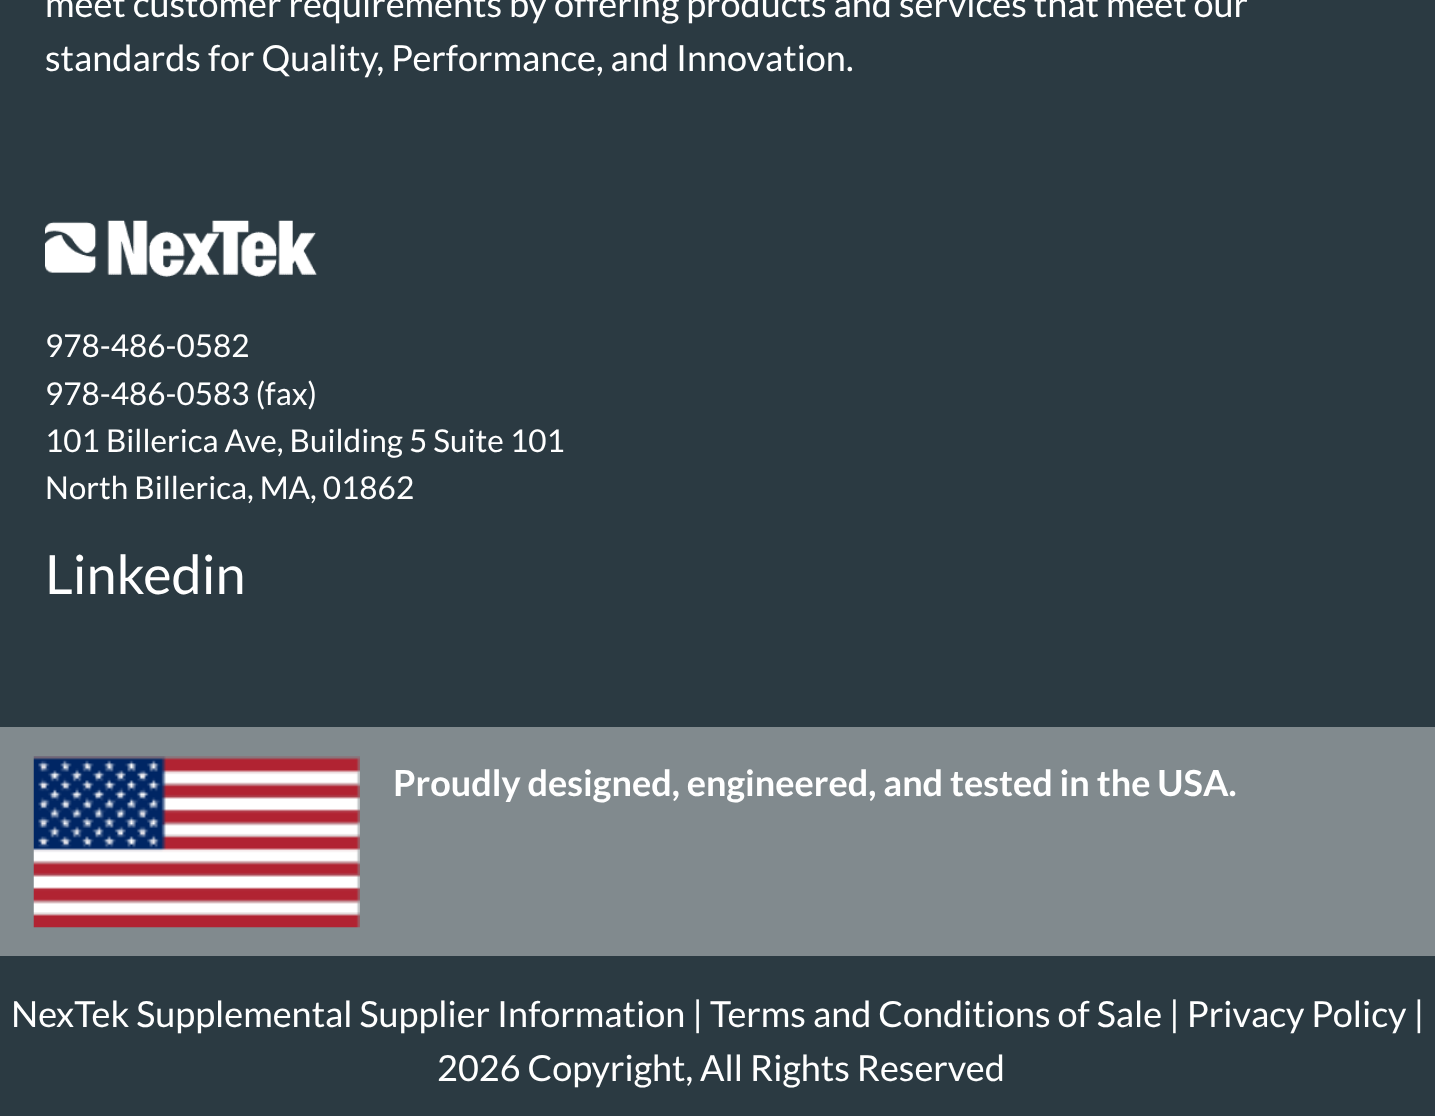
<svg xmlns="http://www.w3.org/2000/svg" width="1435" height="1116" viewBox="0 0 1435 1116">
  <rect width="100%" height="100%" fill="rgb(43,58,66)"/>
  <g font-family="Lato" font-size="36" fill="rgb(255,255,255)">
    <text>
      <tspan x="45" y="17">meet customer requirements by offering products and services that meet our</tspan>
      <tspan x="45" y="71">standards for Quality, Performance, and Innovation.</tspan>
    </text>
  </g>
  <image x="45" y="220" width="273" height="57" href="pic1.png"/>
  <g font-family="Lato" font-size="31.5" fill="rgb(255,255,255)">
    <text>
      <tspan x="45" y="357">978-486-0582</tspan>
      <tspan x="45" y="405">978-486-0583 (fax)</tspan>
      <tspan x="45" y="452">101 Billerica Ave, Building 5 Suite 101</tspan>
      <tspan x="45" y="499">North Billerica, MA, 01862</tspan>
    </text>
  </g>
  <text x="45" y="594" font-family="Lato" font-size="54" fill="rgb(255,255,255)">Linkedin</text>
  <rect x="0" y="727" width="1435" height="229" fill="rgb(129,138,142)"/>
  <image x="33" y="756" width="327" height="172" href="pic2.png"/>
  <text x="393" y="796" font-family="Lato" font-size="36" font-weight="bold" fill="rgb(255,255,255)">Proudly designed, engineered, and tested in the USA.</text>
  <g font-family="Lato" font-size="36" fill="rgb(255,255,255)">
    <text x="11" y="1027">NexTek Supplemental Supplier Information | Terms and Conditions of Sale | Privacy Policy |</text>
    <text x="437" y="1081">2026 Copyright, All Rights Reserved</text>
  </g>
</svg>
